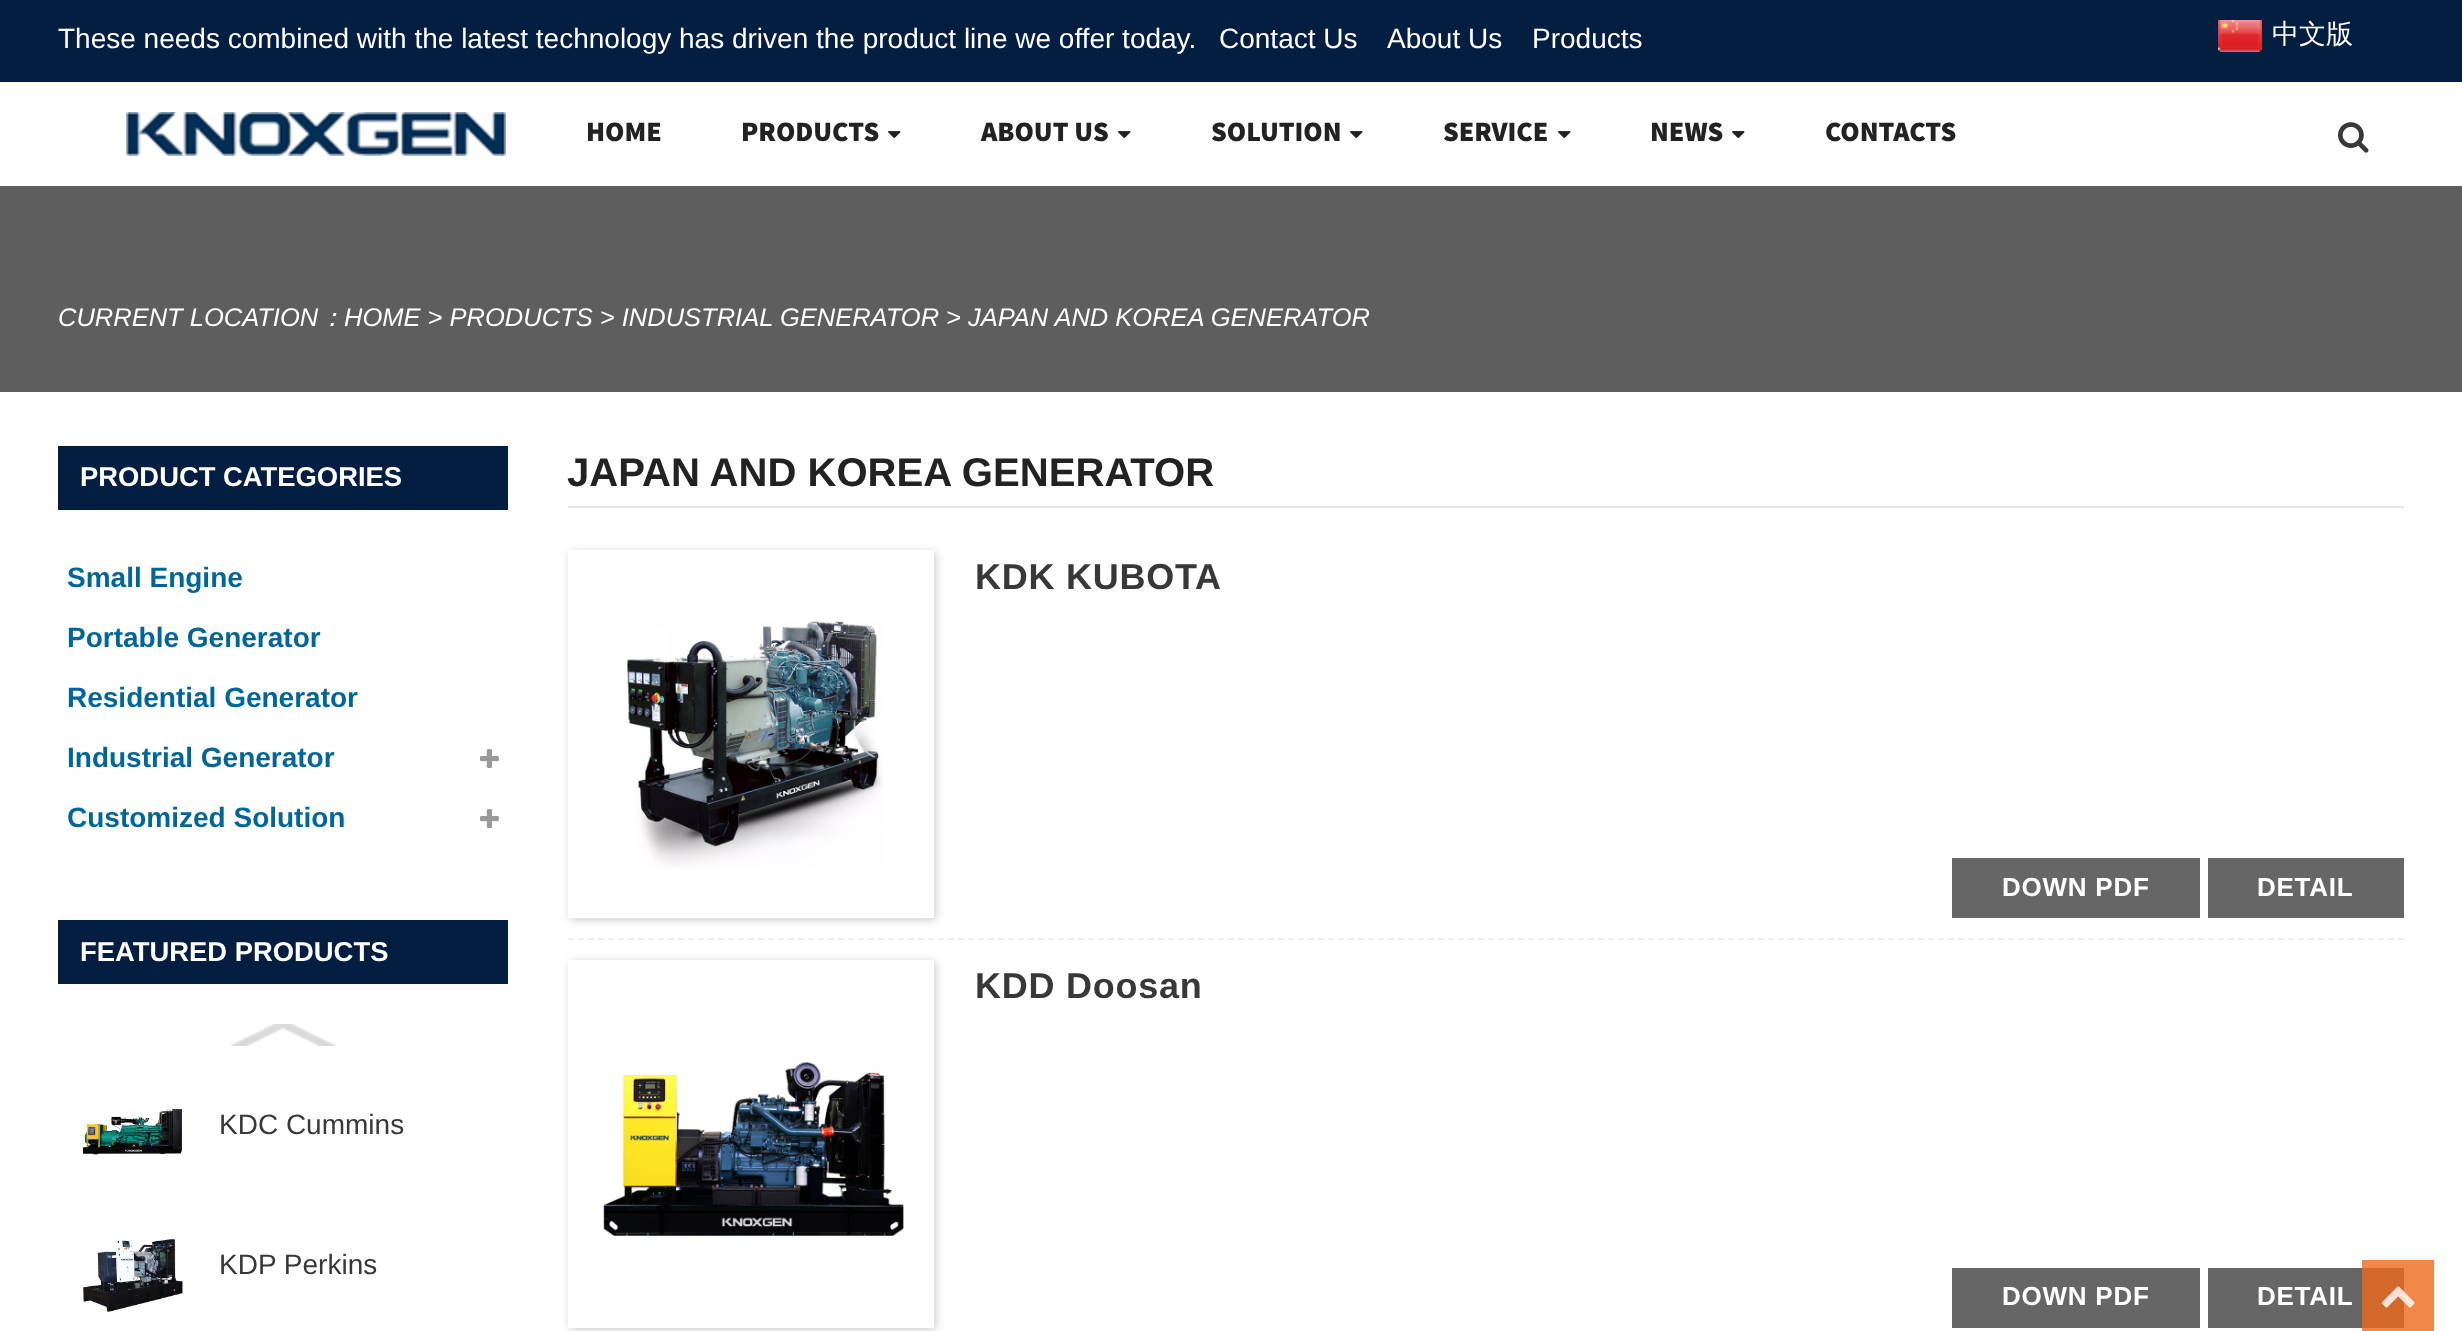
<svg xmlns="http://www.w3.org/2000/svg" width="2462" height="1331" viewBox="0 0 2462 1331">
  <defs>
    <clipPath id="clip1"><path d="M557 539H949V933H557ZM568 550H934V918H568Z" clip-rule="evenodd"/></clipPath>
    <clipPath id="clip2"><path d="M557 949H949V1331H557ZM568 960H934V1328H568Z" clip-rule="evenodd"/></clipPath>
  </defs>
  <rect width="100%" height="100%" fill="rgb(255,255,255)"/>
  <rect x="2362" y="1260" width="72" height="71" fill="rgb(241,135,73)"/>
  <rect x="0" y="0" width="2462" height="82" fill="rgb(4,30,65)"/>
  <g font-family="Liberation Sans" font-size="28" fill="rgb(255,255,255)">
    <text x="58" y="48">These needs combined with the latest technology has driven the product line we offer today.</text>
    <text x="1219" y="48">Contact Us</text>
    <text x="1387" y="48">About Us</text>
    <text x="1532" y="48">Products</text>
  </g>
  <image x="2218" y="20" width="44" height="32" href="pic1.png"/>
  <text x="2272" y="43" font-family="WenQuanYi Zen Hei" font-size="27" font-weight="500" fill="rgb(255,255,255)">中文版</text>
  <image x="126" y="112" width="380" height="44" href="pic2.png"/>
  <g font-family="Source Sans Pro" font-size="28" font-weight="900" fill="rgb(34,34,34)">
    <text x="586" y="141">HOME</text>
    <text x="741" y="141">PRODUCTS</text>
  </g>
  <image x="888" y="131" width="13" height="7" href="pic3.png"/>
  <text x="981" y="141" font-family="Source Sans Pro" font-size="28" font-weight="900" fill="rgb(34,34,34)">ABOUT US</text>
  <image x="1118" y="131" width="13" height="7" href="pic3.png"/>
  <text x="1211" y="141" font-family="Source Sans Pro" font-size="28" font-weight="900" fill="rgb(34,34,34)">SOLUTION</text>
  <image x="1350" y="131" width="13" height="7" href="pic3.png"/>
  <text x="1443" y="141" font-family="Source Sans Pro" font-size="28" font-weight="900" fill="rgb(34,34,34)">SERVICE</text>
  <image x="1558" y="131" width="13" height="7" href="pic3.png"/>
  <text x="1650" y="141" font-family="Source Sans Pro" font-size="28" font-weight="900" fill="rgb(34,34,34)">NEWS</text>
  <image x="1732" y="131" width="13" height="7" href="pic3.png"/>
  <text x="1825" y="141" font-family="Source Sans Pro" font-size="28" font-weight="900" fill="rgb(34,34,34)">CONTACTS</text>
  <image x="2338" y="122" width="31" height="31" href="pic4.png"/>
  <rect x="0" y="186" width="2462" height="206" fill="rgb(94,94,94)"/>
  <text x="58" y="326" font-family="Liberation Sans" font-size="25.5" font-style="italic" fill="rgb(255,255,255)">CURRENT LOCATION</text>
  <text x="319" y="326" font-family="WenQuanYi Zen Hei" font-size="25.5" font-weight="500" font-style="italic" fill="rgb(255,255,255)">：</text>
  <g font-family="Liberation Sans" font-size="25.5" font-style="italic" fill="rgb(255,255,255)">
    <text x="344" y="326">HOME &gt; PRODUCTS &gt; INDUSTRIAL GENERATOR</text>
    <text x="946" y="326">&gt; JAPAN AND KOREA GENERATOR</text>
  </g>
  <rect x="58" y="446" width="450" height="64" fill="rgb(4,30,65)"/>
  <text x="80" y="486" font-family="Liberation Sans" font-size="27.4" font-weight="bold" fill="rgb(255,255,255)">PRODUCT CATEGORIES</text>
  <g font-family="Liberation Sans" font-size="28" font-weight="bold" fill="rgb(0,102,153)">
    <text x="67" y="587">Small Engine</text>
    <text x="67" y="647">Portable Generator</text>
    <text x="67" y="707">Residential Generator</text>
    <text x="67" y="767">Industrial Generator</text>
  </g>
  <image x="480" y="749" width="19" height="19" href="pic5.png"/>
  <text x="67" y="827" font-family="Liberation Sans" font-size="28" font-weight="bold" fill="rgb(0,102,153)">Customized Solution</text>
  <image x="480" y="809" width="19" height="19" href="pic5.png"/>
  <rect x="58" y="920" width="450" height="64" fill="rgb(4,30,65)"/>
  <text x="80" y="961" font-family="Liberation Sans" font-size="27.4" font-weight="bold" fill="rgb(255,255,255)">FEATURED PRODUCTS</text>
  <image x="230" y="1024" width="106" height="22" href="pic6.png"/>
  <image x="83" y="1108" width="99" height="47" href="pic7.png"/>
  <text x="219" y="1134" font-family="Liberation Sans" font-size="28" fill="rgb(56,56,56)">KDC Cummins</text>
  <image x="83" y="1239" width="100" height="73" href="pic8.png"/>
  <text x="219" y="1274" font-family="Liberation Sans" font-size="28" fill="rgb(56,56,56)">KDP Perkins</text>
  <rect x="568" y="506" width="1836" height="2" fill="rgb(229,229,229)"/>
  <text x="567" y="486" font-family="Liberation Sans" font-size="40.1" font-weight="bold" fill="rgb(34,34,34)">JAPAN AND KOREA GENERATOR</text>
  <path d="M568 939H2404" fill="none" stroke="rgb(238,238,238)" stroke-width="2" stroke-dasharray="6 4"/>
  <g clip-path="url(#clip1)">
    <rect x="570" y="552" width="366" height="368" fill="rgba(0,0,0,0.2)" filter="blur(4px)"/>
  </g>
  <image x="626" y="621" width="258" height="248" href="pic9.png"/>
  <text x="975" y="589" font-family="Liberation Sans" font-size="36" font-weight="bold" letter-spacing="0.75" fill="rgb(56,56,56)">KDK KUBOTA</text>
  <rect x="1952" y="858" width="248" height="60" fill="rgb(102,102,102)"/>
  <text x="2002" y="896" font-family="Liberation Sans" font-size="26" font-weight="bold" letter-spacing="0.75" fill="rgb(255,255,255)">DOWN PDF</text>
  <rect x="2208" y="858" width="196" height="60" fill="rgb(102,102,102)"/>
  <text x="2257" y="896" font-family="Liberation Sans" font-size="26" font-weight="bold" letter-spacing="0.75" fill="rgb(255,255,255)">DETAIL</text>
  <g clip-path="url(#clip2)">
    <rect x="570" y="962" width="366" height="368" fill="rgba(0,0,0,0.2)" filter="blur(4px)"/>
  </g>
  <image x="603" y="1062" width="301" height="174" href="pic10.png"/>
  <text x="975" y="998" font-family="Liberation Sans" font-size="36" font-weight="bold" letter-spacing="0.75" fill="rgb(56,56,56)">KDD Doosan</text>
  <rect x="1952" y="1268" width="248" height="60" fill="rgb(102,102,102)"/>
  <text x="2002" y="1305" font-family="Liberation Sans" font-size="26" font-weight="bold" letter-spacing="0.75" fill="rgb(255,255,255)">DOWN PDF</text>
  <rect x="2208" y="1268" width="154" height="60" fill="rgb(102,102,102)"/>
  <rect x="2362" y="1268" width="42" height="60" fill="rgb(210,104,42)"/>
  <text x="2257" y="1305" font-family="Liberation Sans" font-size="26" font-weight="bold" letter-spacing="0.75" fill="rgb(255,255,255)">DETAIL</text>
  <image x="2381" y="1286" width="34" height="22" href="pic11.png"/>
</svg>
